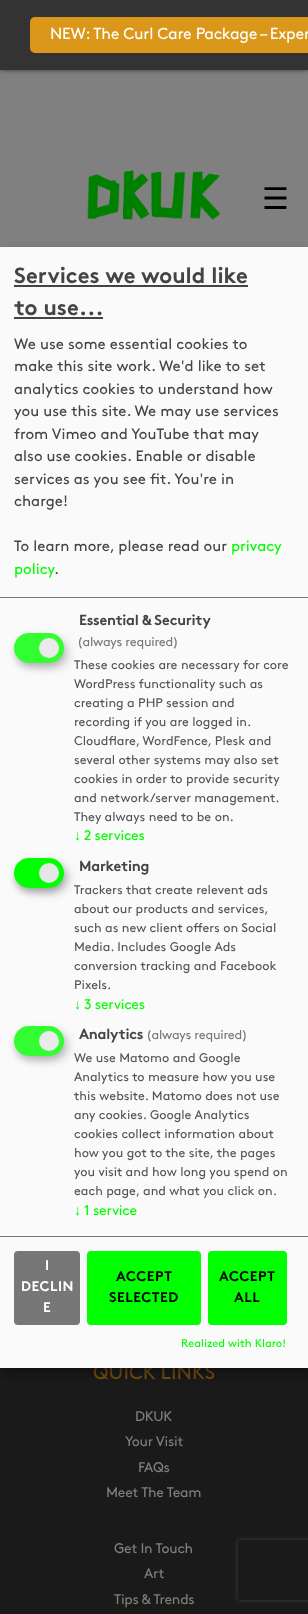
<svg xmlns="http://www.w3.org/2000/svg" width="308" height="1614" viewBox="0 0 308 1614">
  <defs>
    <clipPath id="clip1"><path d="M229 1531H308V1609H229ZM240 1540H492C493 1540 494 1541 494 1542V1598C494 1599 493 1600 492 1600H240C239 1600 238 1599 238 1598V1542C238 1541 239 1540 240 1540Z" clip-rule="evenodd"/></clipPath>
  </defs>
  <rect width="100%" height="100%" fill="rgb(128,128,128)"/>
  <rect x="0" y="0" width="308" height="70" fill="rgb(51,51,51)" filter="blur(2.5px)"/>
  <rect x="0" y="0" width="308" height="70" fill="rgb(51,51,51)"/>
  <rect x="30" y="17" width="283" height="36" rx="5" fill="rgb(219,151,26)"/>
  <text x="50" y="39" font-family="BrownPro" font-size="16" letter-spacing="-0.25" fill="rgb(255,255,255)">NEW: The Curl Care Package – Exper</text>
  <image x="87" y="170" width="134" height="50" href="pic1.png"/>
  <text x="262" y="209" font-family="DejaVu Sans" font-size="30" letter-spacing="-0.25" fill="rgb(0,0,0)">☰</text>
  <rect x="0" y="1368" width="308" height="246" fill="rgb(26,26,26)"/>
  <text x="93" y="1379" font-family="BrownPro" font-size="20" fill="rgb(110,76,13)">QUICK LINKS</text>
  <g font-family="BrownPro" font-size="14" letter-spacing="-0.25" fill="rgb(128,127,122)">
    <text x="135" y="1421">DKUK</text>
    <text x="125" y="1446">Your Visit</text>
    <text x="138" y="1472">FAQs</text>
    <text x="106" y="1497">Meet The Team</text>
    <text x="114" y="1553">Get In Touch</text>
    <text x="144" y="1578">Art</text>
    <text x="114" y="1604">Tips &amp; Trends</text>
  </g>
  <rect x="5" y="252" width="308" height="1121" fill="rgba(0,0,0,0.19)" filter="blur(5px)"/>
  <rect x="0" y="251" width="308" height="1121" fill="rgba(0,0,0,0.2)" filter="blur(3px)"/>
  <rect x="0" y="247" width="308" height="1121" fill="rgb(250,250,250)"/>
  <rect x="0" y="597" width="308" height="1" fill="rgb(119,119,119)"/>
  <text x="14" y="283" font-family="BrownPro" font-size="22" font-weight="bold" fill="rgb(68,68,68)">Services we would like</text>
  <rect x="14" y="285" width="234" height="2" fill="rgb(68,68,68)"/>
  <text x="14" y="315" font-family="BrownPro" font-size="22" font-weight="bold" fill="rgb(68,68,68)">to use...</text>
  <rect x="14" y="317" width="89" height="2" fill="rgb(68,68,68)"/>
  <g font-family="BrownPro" font-size="15" fill="rgb(68,68,68)">
    <text>
      <tspan x="14" y="349">We use some essential cookies to</tspan>
      <tspan x="14" y="371">make this site work. We'd like to set</tspan>
      <tspan x="14" y="394">analytics cookies to understand how</tspan>
      <tspan x="14" y="416">you use this site. We may use services</tspan>
      <tspan x="14" y="439">from Vimeo and YouTube that may</tspan>
      <tspan x="14" y="461">also use cookies. Enable or disable</tspan>
      <tspan x="14" y="484">services as you see fit. You're in</tspan>
      <tspan x="14" y="506">charge!</tspan>
    </text>
    <text x="14" y="551">To learn more, please read our</text>
  </g>
  <g font-family="BrownPro" font-size="15" fill="rgb(0,255,0)">
    <text x="231" y="551">privacy</text>
    <text x="14" y="574">policy</text>
  </g>
  <text x="54" y="574" font-family="BrownPro" font-size="15" fill="rgb(68,68,68)">.</text>
  <rect x="19" y="638" width="50" height="30" rx="15" fill="rgba(50,50,50,0.19)" filter="blur(5px)"/>
  <rect x="14" y="637" width="50" height="30" rx="15" fill="rgba(50,50,50,0.2)" filter="blur(3px)"/>
  <rect x="14" y="633" width="50" height="30" rx="15" fill="rgb(50,254,50)"/>
  <circle cx="49" cy="648" r="10" fill="rgb(234,234,234)"/>
  <text x="79" y="625" font-family="BrownPro" font-size="14.5" font-weight="bold" letter-spacing="-0.25" fill="rgb(68,68,68)">Essential &amp; Security</text>
  <text x="77" y="646" font-family="BrownPro" font-size="12.75" letter-spacing="-0.25" fill="rgb(119,119,119)">(always required)</text>
  <g font-family="BrownPro" font-size="12.6" fill="rgb(85,85,85)">
    <text>
      <tspan x="74" y="669">These cookies are necessary for core</tspan>
      <tspan x="74" y="688">WordPress functionality such as</tspan>
      <tspan x="74" y="707">creating a PHP session and</tspan>
      <tspan x="74" y="726">recording if you are logged in.</tspan>
      <tspan x="74" y="745">Cloudflare, WordFence, Plesk and</tspan>
      <tspan x="74" y="764">several other systems may also set</tspan>
      <tspan x="74" y="783">cookies in order to provide security</tspan>
      <tspan x="74" y="802">and network/server management.</tspan>
      <tspan x="74" y="821">They always need to be on.</tspan>
    </text>
  </g>
  <text x="74" y="840" font-family="Liberation Serif" font-size="14" letter-spacing="-0.25" fill="rgb(0,255,0)">↓</text>
  <text x="84" y="840" font-family="BrownPro" font-size="14" letter-spacing="-0.25" fill="rgb(0,255,0)">2 services</text>
  <rect x="19" y="863" width="50" height="30" rx="15" fill="rgba(0,0,0,0.19)" filter="blur(5px)"/>
  <rect x="14" y="862" width="50" height="30" rx="15" fill="rgba(0,0,0,0.2)" filter="blur(3px)"/>
  <rect x="14" y="858" width="50" height="30" rx="15" fill="rgb(0,255,0)"/>
  <circle cx="49" cy="873" r="10" fill="rgb(230,230,230)"/>
  <text x="79" y="871" font-family="BrownPro" font-size="14.5" font-weight="bold" letter-spacing="-0.25" fill="rgb(68,68,68)">Marketing</text>
  <g font-family="BrownPro" font-size="12.6" fill="rgb(85,85,85)">
    <text>
      <tspan x="74" y="894">Trackers that create relevent ads</tspan>
      <tspan x="74" y="913">about our products and services,</tspan>
      <tspan x="74" y="932">such as new client offers on Social</tspan>
      <tspan x="74" y="951">Media. Includes Google Ads</tspan>
      <tspan x="74" y="970">conversion tracking and Facebook</tspan>
      <tspan x="74" y="989">Pixels.</tspan>
    </text>
  </g>
  <text x="74" y="1009" font-family="Liberation Serif" font-size="14" letter-spacing="-0.25" fill="rgb(0,255,0)">↓</text>
  <text x="84" y="1009" font-family="BrownPro" font-size="14" letter-spacing="-0.25" fill="rgb(0,255,0)">3 services</text>
  <rect x="19" y="1031" width="50" height="30" rx="15" fill="rgba(50,50,50,0.19)" filter="blur(5px)"/>
  <rect x="14" y="1030" width="50" height="30" rx="15" fill="rgba(50,50,50,0.2)" filter="blur(3px)"/>
  <rect x="14" y="1026" width="50" height="30" rx="15" fill="rgb(50,254,50)"/>
  <circle cx="49" cy="1041" r="10" fill="rgb(234,234,234)"/>
  <text x="79" y="1039" font-family="BrownPro" font-size="14.5" font-weight="bold" letter-spacing="-0.25" fill="rgb(68,68,68)">Analytics</text>
  <text x="146" y="1039" font-family="BrownPro" font-size="12.75" letter-spacing="-0.25" fill="rgb(119,119,119)">(always required)</text>
  <g font-family="BrownPro" font-size="12.6" fill="rgb(85,85,85)">
    <text>
      <tspan x="74" y="1062">We use Matomo and Google</tspan>
      <tspan x="74" y="1081">Analytics to measure how you use</tspan>
      <tspan x="74" y="1100">this website. Matomo does not use</tspan>
      <tspan x="74" y="1119">any cookies. Google Analytics</tspan>
      <tspan x="74" y="1138">cookies collect information about</tspan>
      <tspan x="74" y="1157">how you got to the site, the pages</tspan>
      <tspan x="74" y="1176">you visit and how long you spend on</tspan>
      <tspan x="74" y="1195">each page, and what you click on.</tspan>
    </text>
  </g>
  <text x="74" y="1215" font-family="Liberation Serif" font-size="14" letter-spacing="-0.25" fill="rgb(0,255,0)">↓</text>
  <text x="84" y="1215" font-family="BrownPro" font-size="14" letter-spacing="-0.25" fill="rgb(0,255,0)">1 service</text>
  <rect x="0" y="1236" width="308" height="1" fill="rgb(119,119,119)"/>
  <rect x="14" y="1251" width="66" height="74" rx="4" fill="rgb(119,119,119)"/>
  <g font-family="BrownPro" font-size="14" font-weight="bold" letter-spacing="0.5" fill="rgb(255,255,255)">
    <text x="45" y="1270">I</text>
    <text x="21" y="1291">DECLIN</text>
    <text x="43" y="1312">E</text>
  </g>
  <rect x="87" y="1251" width="114" height="74" rx="4" fill="rgb(0,255,0)"/>
  <g font-family="BrownPro" font-size="14" font-weight="bold" letter-spacing="0.5" fill="rgb(0,0,0)">
    <text x="116" y="1281">ACCEPT</text>
    <text x="109" y="1302">SELECTED</text>
  </g>
  <rect x="208" y="1251" width="79" height="74" rx="4" fill="rgb(0,255,0)"/>
  <g font-family="BrownPro" font-size="14" font-weight="bold" letter-spacing="0.5" fill="rgb(0,0,0)">
    <text x="219" y="1281">ACCEPT</text>
    <text x="234" y="1302">ALL</text>
  </g>
  <text x="181" y="1347" font-family="BrownPro" font-size="11.25" fill="rgb(0,255,0)">Realized with Klaro!</text>
  <g clip-path="url(#clip1)">
    <rect x="238" y="1540" width="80" height="60" rx="2" fill="rgb(64,64,64)" filter="blur(2.5px)"/>
  </g>
</svg>
